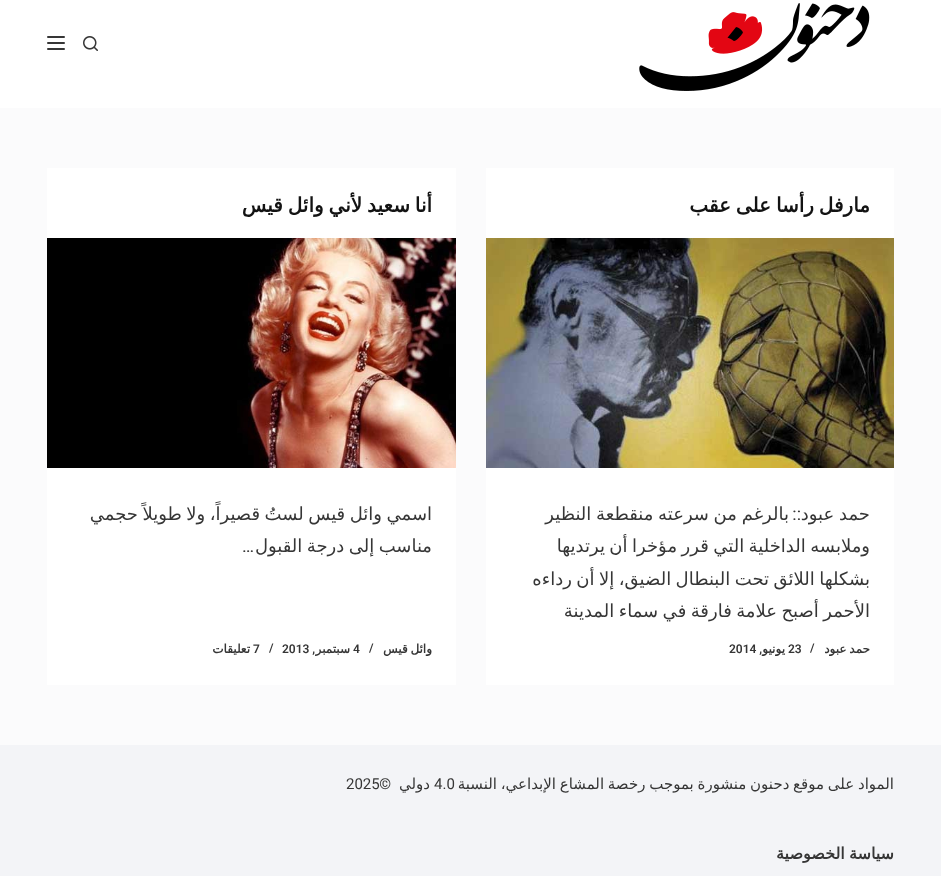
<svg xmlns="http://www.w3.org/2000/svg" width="941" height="876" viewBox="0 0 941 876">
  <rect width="100%" height="100%" fill="rgb(251,251,252)"/>
  <rect x="0" y="0" width="941" height="108" fill="rgb(255,255,255)"/>
  <image x="639" y="3" width="231" height="88" href="pic1.png"/>
  <image x="83" y="36" width="15" height="15" href="pic2.png"/>
  <rect x="47" y="36" width="18" height="2" rx="1" fill="rgb(54,54,54)"/>
  <rect x="47" y="42" width="18" height="2" rx="1" fill="rgb(54,54,54)"/>
  <rect x="47" y="48" width="18" height="2" rx="1" fill="rgb(54,54,54)"/>
  <rect x="486" y="168" width="408" height="517" fill="rgb(255,255,255)"/>
  <text x="870" y="212" word-spacing="-1.5" font-family="DejaVu Sans" font-size="20" font-weight="bold" direction="rtl" fill="rgb(19,19,19)">مارفل رأسا على عقب</text>
  <image x="486" y="238" width="408" height="230" href="pic3.png"/>
  <text x="870" y="520" word-spacing="-1" font-family="DejaVu Sans" font-size="18" direction="rtl" fill="rgb(54,54,54)">حمد عبود</text>
  <text x="801" y="520" font-family="Roboto" font-size="18" direction="rtl" fill="rgb(54,54,54)">::</text>
  <g font-family="DejaVu Sans" font-size="18" direction="rtl" fill="rgb(54,54,54)">
    <text x="789" y="520" word-spacing="-1">بالرغم من سرعته منقطعة النظير</text>
    <text>
      <tspan x="870" y="552" word-spacing="-1.25">وملابسه الداخلية التي قرر مؤخرا أن يرتديها</tspan>
      <tspan x="870" y="585" word-spacing="-1.25">بشكلها اللائق تحت البنطال الضيق، إلا أن رداءه</tspan>
      <tspan x="870" y="617" word-spacing="-1.25">الأحمر أصبح علامة فارقة في سماء المدينة</tspan>
    </text>
  </g>
  <text x="870" y="653" word-spacing="-1" font-family="DejaVu Sans" font-size="12" font-weight="bold" direction="rtl" fill="rgb(54,54,54)">حمد عبود</text>
  <g font-family="Roboto" font-size="12" font-weight="600" fill="rgb(54,54,54)">
    <text x="810" y="652">/</text>
    <text x="788" y="653">23</text>
  </g>
  <text x="762" y="653" font-family="Roboto" font-size="12" font-weight="600" direction="rtl" fill="rgb(54,54,54)">,</text>
  <text x="785" y="653" font-family="DejaVu Sans" font-size="12" font-weight="bold" direction="rtl" fill="rgb(54,54,54)">يونيو</text>
  <text x="729" y="653" font-family="Roboto" font-size="12" font-weight="600" fill="rgb(54,54,54)">2014</text>
  <rect x="47" y="168" width="409" height="517" fill="rgb(255,255,255)"/>
  <text x="432" y="212" word-spacing="-1.5" font-family="DejaVu Sans" font-size="20" font-weight="bold" direction="rtl" fill="rgb(19,19,19)">أنا سعيد لأني وائل قيس</text>
  <image x="47" y="238" width="409" height="230" href="pic4.png"/>
  <g font-family="DejaVu Sans" font-size="18" direction="rtl" fill="rgb(54,54,54)">
    <text>
      <tspan x="432" y="520" word-spacing="-1.25">اسمي وائل قيس لستُ قصيراً، ولا طويلاً حجمي</tspan>
      <tspan x="432" y="552" word-spacing="-1.25">مناسب إلى درجة القبول</tspan>
    </text>
  </g>
  <text x="254" y="552" font-family="Roboto" font-size="18" direction="rtl" fill="rgb(54,54,54)">…</text>
  <text x="432" y="653" word-spacing="-1" font-family="DejaVu Sans" font-size="12" font-weight="bold" direction="rtl" fill="rgb(54,54,54)">وائل قيس</text>
  <g font-family="Roboto" font-size="12" font-weight="600" fill="rgb(54,54,54)">
    <text x="369" y="652">/</text>
    <text x="353" y="653">4</text>
  </g>
  <text x="315" y="653" font-family="Roboto" font-size="12" font-weight="600" direction="rtl" fill="rgb(54,54,54)">,</text>
  <text x="350" y="653" font-family="DejaVu Sans" font-size="12" font-weight="bold" direction="rtl" fill="rgb(54,54,54)">سبتمبر</text>
  <g font-family="Roboto" font-size="12" font-weight="600" fill="rgb(54,54,54)">
    <text x="282" y="653">2013</text>
    <text x="269" y="652">/</text>
    <text x="253" y="653">7</text>
  </g>
  <text x="250" y="653" font-family="DejaVu Sans" font-size="12" font-weight="bold" direction="rtl" fill="rgb(54,54,54)">تعليقات</text>
  <rect x="0" y="745" width="941" height="131" fill="rgb(243,244,247)"/>
  <text x="894" y="789" word-spacing="-1" font-family="DejaVu Sans" font-size="15" direction="rtl" fill="rgb(54,54,54)">المواد على موقع دحنون منشورة بموجب رخصة المشاع الإبداعي، النسبة</text>
  <text x="434" y="789" font-family="Roboto" font-size="15" fill="rgb(54,54,54)">4.0</text>
  <text x="430" y="789" font-family="DejaVu Sans" font-size="15" direction="rtl" fill="rgb(54,54,54)">دولي</text>
  <text x="391" y="789" font-family="Roboto" font-size="15" direction="rtl" fill="rgb(54,54,54)">©</text>
  <text x="346" y="789" font-family="Roboto" font-size="15" fill="rgb(54,54,54)">2025</text>
  <text x="894" y="859" word-spacing="-1" font-family="DejaVu Sans" font-size="16" font-weight="bold" direction="rtl" fill="rgb(54,54,54)">سياسة الخصوصية</text>
</svg>
